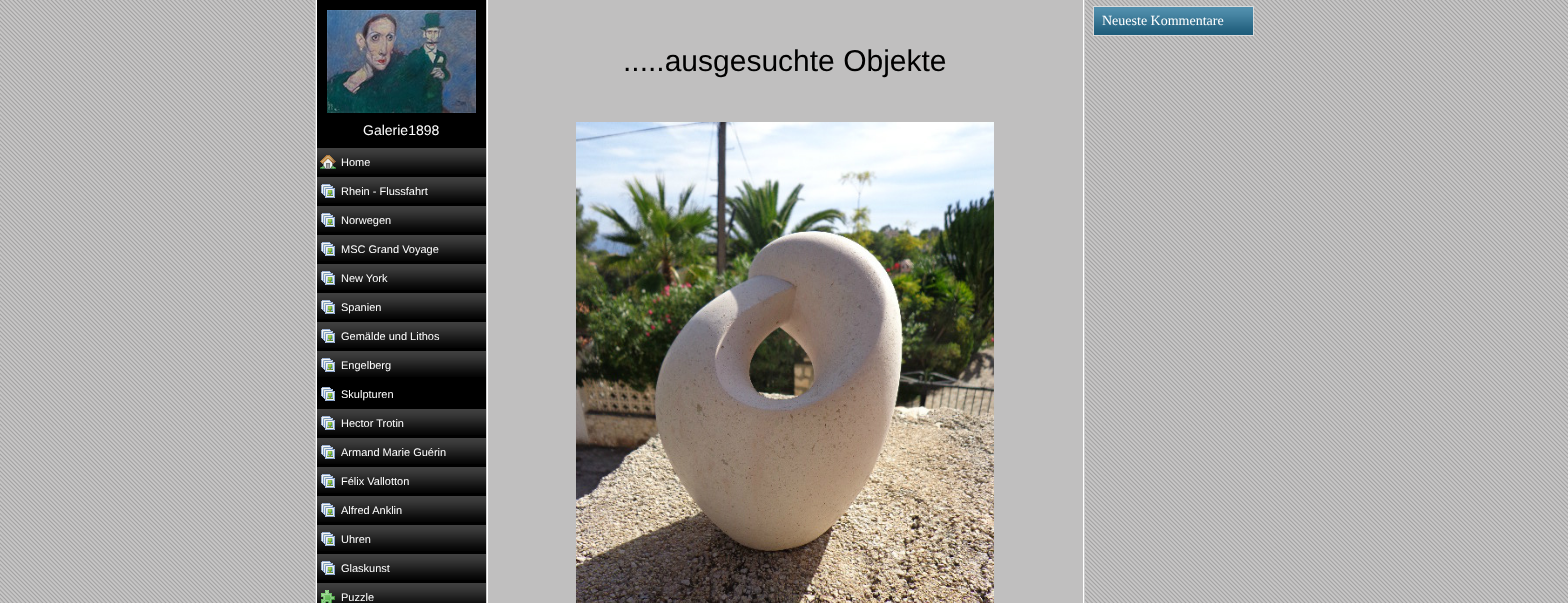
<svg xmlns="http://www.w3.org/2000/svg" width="1568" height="603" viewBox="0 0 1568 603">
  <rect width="100%" height="100%" fill="rgb(192,191,191)"/>
  <image x="0" y="0" width="1568" height="603" href="pic1.png"/>
  <rect x="1093.5" y="6.5" width="160" height="29" fill="rgb(51,153,204)" stroke="rgb(218,218,218)"/>
  <image x="1094" y="7" width="159" height="28" href="pic2.png"/>
  <text x="1102" y="25" font-family="Liberation Serif" font-size="14" fill="rgb(255,255,255)">Neueste Kommentare</text>
  <rect x="316" y="0" width="768" height="603" fill="rgb(255,255,255)"/>
  <rect x="315" y="0" width="1" height="603" fill="rgb(204,204,204)"/>
  <rect x="486" y="0" width="1" height="603" fill="rgb(204,204,204)"/>
  <rect x="488" y="0" width="595" height="603" fill="rgb(192,191,191)"/>
  <text x="623" y="71" font-family="Liberation Sans" font-size="30" fill="rgb(0,0,0)">.....ausgesuchte Objekte</text>
  <image x="576" y="122" width="418" height="481" href="pic3.png"/>
  <rect x="1084" y="0" width="1" height="603" fill="rgb(204,204,204)"/>
  <rect x="317" y="0" width="169" height="603" fill="rgb(0,0,0)"/>
  <image x="327" y="10" width="149" height="103" href="pic4.png"/>
  <text x="363" y="135" font-family="Liberation Sans" font-size="14" fill="rgb(255,255,255)">Galerie1898</text>
  <image x="317" y="148" width="169" height="26" href="pic5.png"/>
  <image x="320" y="155" width="16" height="14" href="pic6.png"/>
  <text x="341" y="166" font-family="Liberation Sans" font-size="11" fill="rgb(255,255,255)">Home</text>
  <image x="317" y="177" width="169" height="26" href="pic5.png"/>
  <image x="321" y="184" width="14" height="14" href="pic7.png"/>
  <text x="341" y="195" font-family="Liberation Sans" font-size="11" fill="rgb(255,255,255)">Rhein - Flussfahrt</text>
  <image x="317" y="206" width="169" height="26" href="pic5.png"/>
  <image x="321" y="213" width="14" height="14" href="pic7.png"/>
  <text x="341" y="224" font-family="Liberation Sans" font-size="11" fill="rgb(255,255,255)">Norwegen</text>
  <image x="317" y="235" width="169" height="26" href="pic5.png"/>
  <image x="321" y="242" width="14" height="14" href="pic7.png"/>
  <text x="341" y="253" font-family="Liberation Sans" font-size="11" fill="rgb(255,255,255)">MSC Grand Voyage</text>
  <image x="317" y="264" width="169" height="26" href="pic5.png"/>
  <image x="321" y="271" width="14" height="14" href="pic7.png"/>
  <text x="341" y="282" font-family="Liberation Sans" font-size="11" fill="rgb(255,255,255)">New York</text>
  <image x="317" y="293" width="169" height="26" href="pic5.png"/>
  <image x="321" y="300" width="14" height="14" href="pic7.png"/>
  <text x="341" y="311" font-family="Liberation Sans" font-size="11" fill="rgb(255,255,255)">Spanien</text>
  <image x="317" y="322" width="169" height="26" href="pic5.png"/>
  <image x="321" y="329" width="14" height="14" href="pic7.png"/>
  <text x="341" y="340" font-family="Liberation Sans" font-size="11" fill="rgb(255,255,255)">Gemälde und Lithos</text>
  <image x="317" y="351" width="169" height="26" href="pic5.png"/>
  <image x="321" y="358" width="14" height="14" href="pic7.png"/>
  <text x="341" y="369" font-family="Liberation Sans" font-size="11" fill="rgb(255,255,255)">Engelberg</text>
  <image x="321" y="387" width="14" height="14" href="pic8.png"/>
  <text x="341" y="398" font-family="Liberation Sans" font-size="11" fill="rgb(255,255,255)">Skulpturen</text>
  <image x="317" y="409" width="169" height="26" href="pic5.png"/>
  <image x="321" y="416" width="14" height="14" href="pic7.png"/>
  <text x="341" y="427" font-family="Liberation Sans" font-size="11" fill="rgb(255,255,255)">Hector Trotin</text>
  <image x="317" y="438" width="169" height="26" href="pic5.png"/>
  <image x="321" y="445" width="14" height="14" href="pic7.png"/>
  <text x="341" y="456" font-family="Liberation Sans" font-size="11" fill="rgb(255,255,255)">Armand Marie Guérin</text>
  <image x="317" y="467" width="169" height="26" href="pic5.png"/>
  <image x="321" y="474" width="14" height="14" href="pic7.png"/>
  <text x="341" y="485" font-family="Liberation Sans" font-size="11" fill="rgb(255,255,255)">Félix Vallotton</text>
  <image x="317" y="496" width="169" height="26" href="pic5.png"/>
  <image x="321" y="503" width="14" height="14" href="pic7.png"/>
  <text x="341" y="514" font-family="Liberation Sans" font-size="11" fill="rgb(255,255,255)">Alfred Anklin</text>
  <image x="317" y="525" width="169" height="26" href="pic5.png"/>
  <image x="321" y="532" width="14" height="14" href="pic7.png"/>
  <text x="341" y="543" font-family="Liberation Sans" font-size="11" fill="rgb(255,255,255)">Uhren</text>
  <image x="317" y="554" width="169" height="26" href="pic5.png"/>
  <image x="321" y="561" width="14" height="14" href="pic7.png"/>
  <text x="341" y="572" font-family="Liberation Sans" font-size="11" fill="rgb(255,255,255)">Glaskunst</text>
  <image x="317" y="583" width="169" height="20" href="pic9.png"/>
  <image x="321" y="590" width="14" height="13" href="pic10.png"/>
  <text x="341" y="601" font-family="Liberation Sans" font-size="11" fill="rgb(255,255,255)">Puzzle</text>
</svg>
